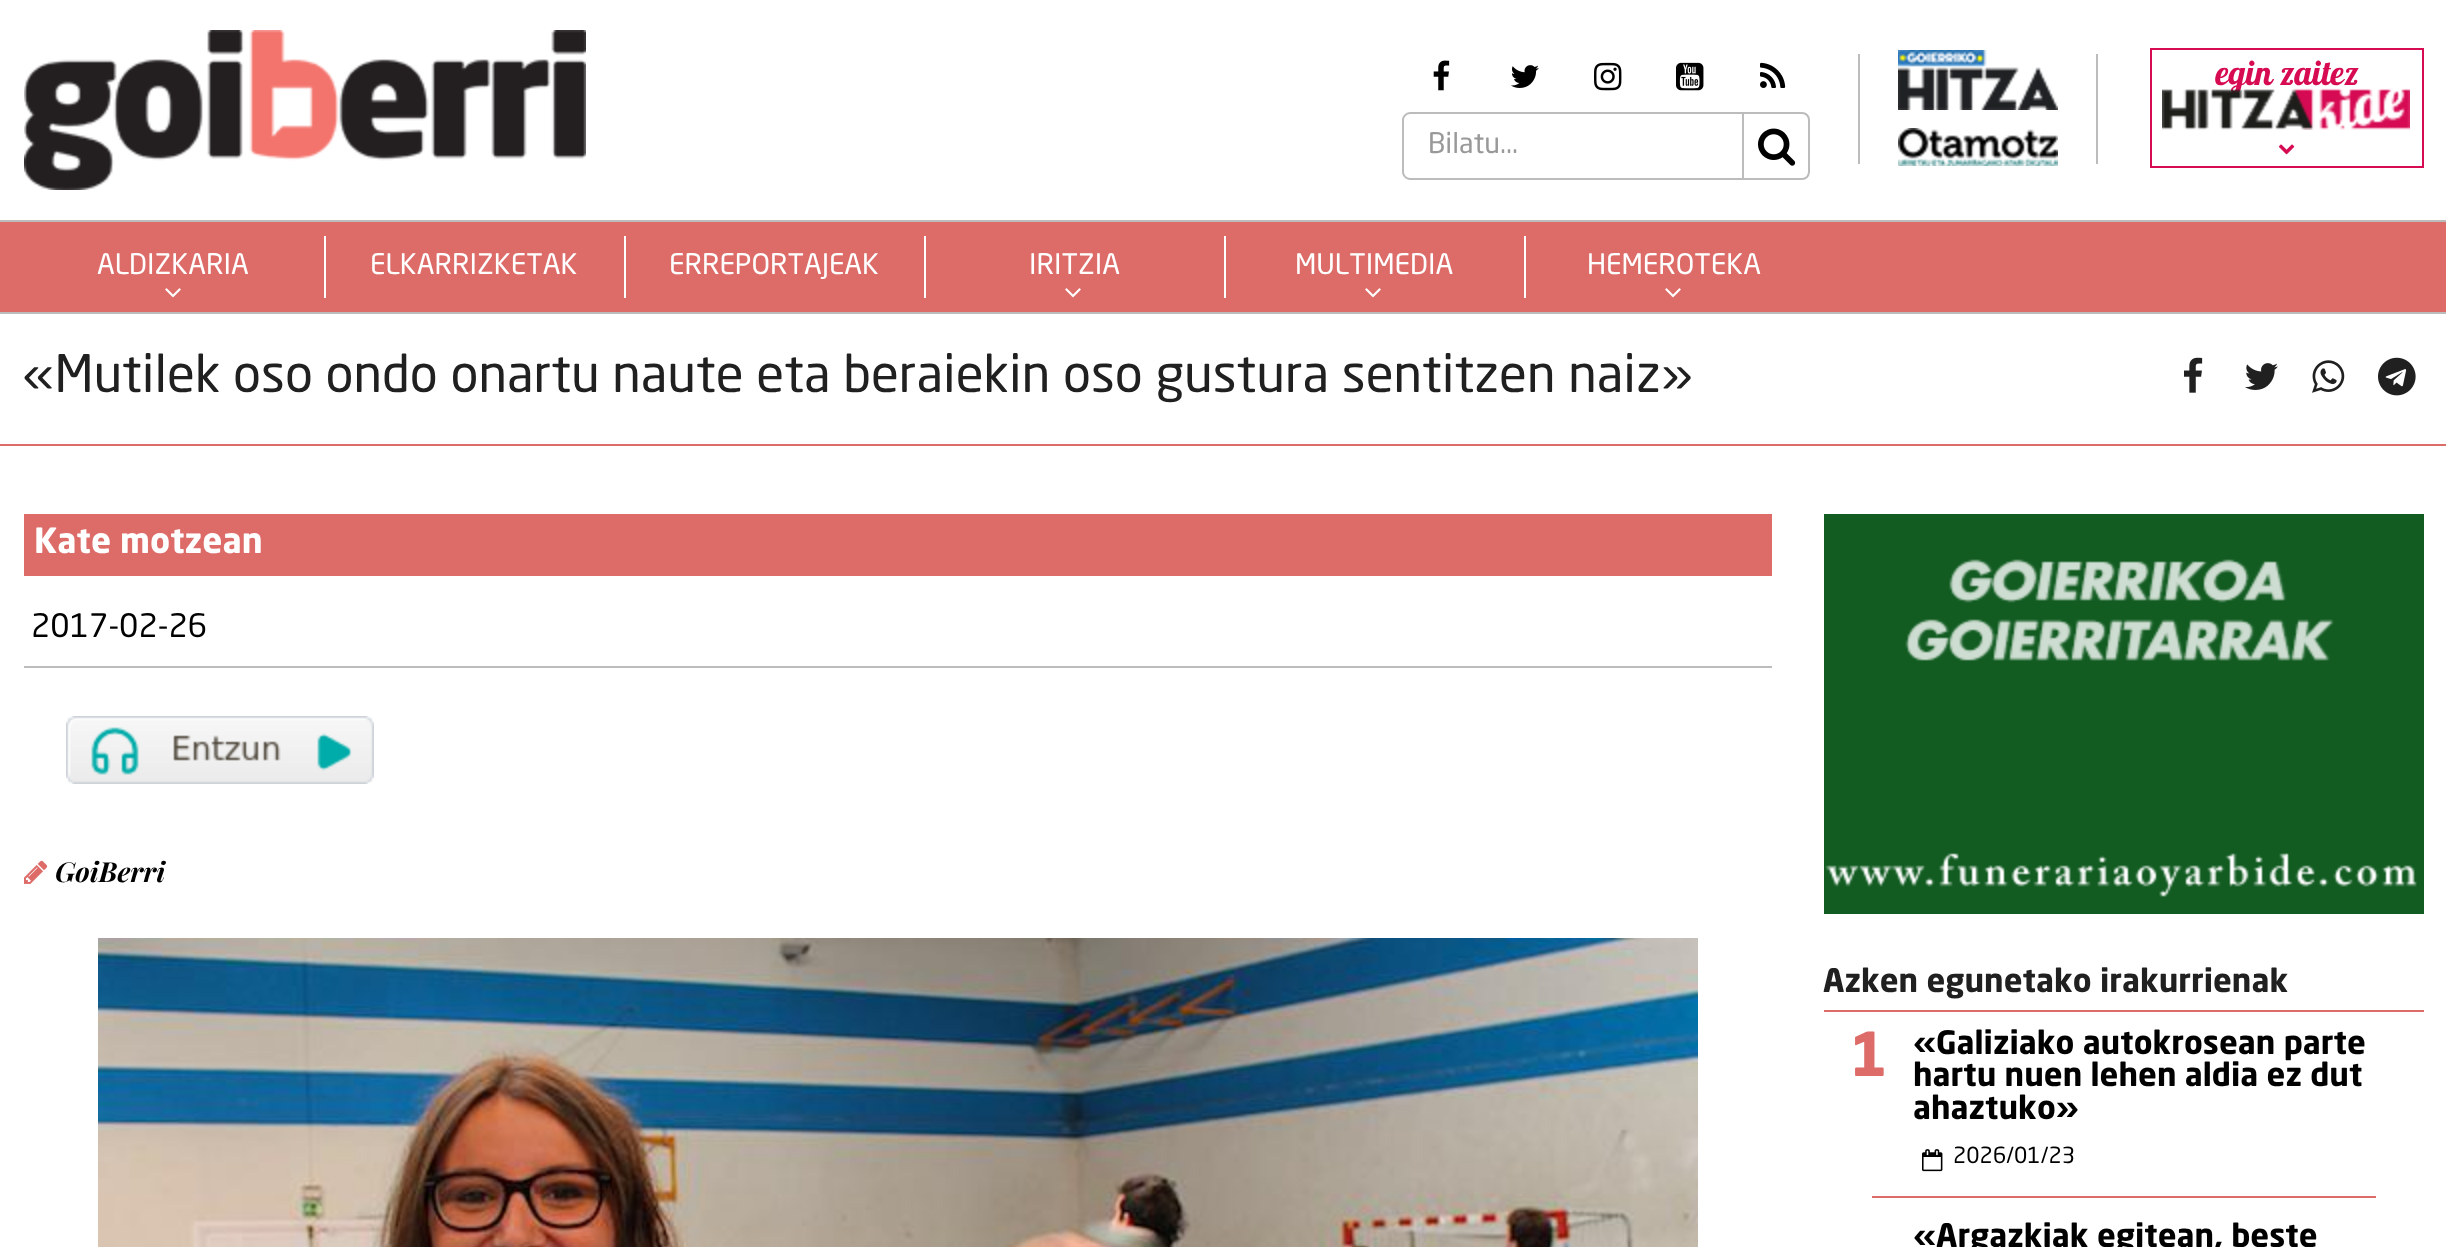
<svg xmlns="http://www.w3.org/2000/svg" width="2446" height="1247" viewBox="0 0 2446 1247">
  <style>*{font-kerning:none!important;font-variant-ligatures:none!important}</style>
  <rect width="100%" height="100%" fill="rgb(255,255,255)"/>
  <image x="24" y="30" width="562" height="160" href="pic1.png"/>
  <rect x="1858" y="54" width="2" height="110" fill="rgb(188,188,188)"/>
  <image x="1898" y="50" width="160" height="60" href="pic2.png"/>
  <rect x="2096" y="54" width="2" height="110" fill="rgb(188,188,188)"/>
  <image x="1898" y="128" width="160" height="38" href="pic3.png"/>
  <rect x="2151" y="49" width="272" height="118" fill="none" stroke="rgb(214,11,81)" stroke-width="2"/>
  <text x="2215" y="85" font-family="Lobster Two" font-size="34.25" font-weight="bold" font-style="italic" fill="rgb(214,11,81)">egin zaitez</text>
  <image x="2162" y="88" width="248" height="42" href="pic4.png"/>
  <image x="2278" y="144" width="17" height="11" href="pic5.png"/>
  <image x="1433" y="60" width="17" height="31" href="pic6.png"/>
  <image x="1511" y="65" width="28" height="23" href="pic7.png"/>
  <image x="1594" y="62" width="28" height="29" href="pic8.png"/>
  <image x="1676" y="62" width="28" height="29" href="pic9.png"/>
  <image x="1760" y="62" width="26" height="26" href="pic10.png"/>
  <path d="M1410 112H1744V180H1410C1406 180 1402 176 1402 172V120C1402 116 1406 112 1410 112ZM1410 114H1744V178H1410C1407 178 1404 175 1404 172V120C1404 117 1407 114 1410 114Z" fill="rgb(188,188,188)" fill-rule="evenodd"/>
  <text x="1428" y="153" font-family="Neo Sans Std" font-size="28" fill="rgb(153,153,153)">Bilatu...</text>
  <path d="M1743 113H1802C1806 113 1809 116 1809 120V172C1809 176 1806 179 1802 179H1743Z" fill="rgb(255,255,255)" stroke="rgb(188,188,188)" stroke-width="2"/>
  <image x="1758" y="128" width="38" height="38" href="pic11.png"/>
  <rect x="0" y="222" width="2446" height="90" fill="rgb(221,108,105)"/>
  <rect x="0" y="220" width="2446" height="2" fill="rgb(188,188,188)"/>
  <rect x="0" y="312" width="2446" height="2" fill="rgb(188,188,188)"/>
  <text x="97" y="274" font-family="Neo Sans Std" font-size="28" fill="rgb(255,255,255)">ALDIZKARIA</text>
  <image x="165" y="288" width="16" height="10" href="pic12.png"/>
  <rect x="324" y="236" width="2" height="62" fill="rgb(255,255,255)"/>
  <text x="370" y="274" font-family="Neo Sans Std" font-size="28" fill="rgb(255,255,255)">ELKARRIZKETAK</text>
  <rect x="624" y="236" width="2" height="62" fill="rgb(255,255,255)"/>
  <text x="669" y="274" font-family="Neo Sans Std" font-size="28" fill="rgb(255,255,255)">ERREPORTAJEAK</text>
  <rect x="924" y="236" width="2" height="62" fill="rgb(255,255,255)"/>
  <text x="1029" y="274" font-family="Neo Sans Std" font-size="28" fill="rgb(255,255,255)">IRITZIA</text>
  <image x="1065" y="288" width="16" height="10" href="pic12.png"/>
  <rect x="1224" y="236" width="2" height="62" fill="rgb(255,255,255)"/>
  <text x="1295" y="274" font-family="Neo Sans Std" font-size="28" fill="rgb(255,255,255)">MULTIMEDIA</text>
  <image x="1365" y="288" width="16" height="10" href="pic12.png"/>
  <rect x="1524" y="236" width="2" height="62" fill="rgb(255,255,255)"/>
  <text x="1587" y="274" font-family="Neo Sans Std" font-size="28" fill="rgb(255,255,255)">HEMEROTEKA</text>
  <image x="1665" y="288" width="16" height="10" href="pic12.png"/>
  <rect x="0" y="444" width="2446" height="2" fill="rgb(221,108,105)"/>
  <text x="23" y="392" font-family="Neo Sans Std" font-size="51.3" fill="rgb(32,32,32)">«Mutilek oso ondo onartu naute eta beraiekin oso gustura sentitzen naiz»</text>
  <image x="2184" y="357" width="19" height="36" href="pic13.png"/>
  <image x="2245" y="363" width="33" height="27" href="pic14.png"/>
  <image x="2312" y="360" width="33" height="33" href="pic15.png"/>
  <image x="2378" y="357" width="38" height="39" href="pic16.png"/>
  <rect x="24" y="514" width="1748" height="62" fill="rgb(221,108,105)"/>
  <text x="34" y="553" font-family="Neo Sans Std" font-size="34.25" font-weight="bold" fill="rgb(255,255,255)">Kate motzean</text>
  <rect x="24" y="666" width="1748" height="2" fill="rgb(188,188,188)"/>
  <text x="31" y="637" font-family="Neo Sans Std" font-size="32" fill="rgb(0,0,0)">2017-02-26</text>
  <image x="66" y="716" width="308" height="68" href="pic17.png"/>
  <image x="24" y="860" width="24" height="24" href="pic18.png"/>
  <text x="55" y="882" font-family="Playfair Display" font-size="27.5" font-weight="bold" font-style="italic" fill="rgb(0,0,0)">GoiBerri</text>
  <image x="98" y="938" width="1600" height="309" href="pic19.png"/>
  <image x="1824" y="514" width="600" height="400" href="pic20.png"/>
  <text x="1823" y="992" font-family="Neo Sans Std" font-size="32" font-weight="bold" fill="rgb(32,32,32)">Azken egunetako irakurrienak</text>
  <rect x="1824" y="1010" width="600" height="2" fill="rgb(221,108,105)"/>
  <text x="1849" y="1076" font-family="Neo Sans Std" font-size="60" font-weight="bold" fill="rgb(221,108,105)">1</text>
  <g font-family="Neo Sans Std" font-size="32" font-weight="bold" fill="rgb(0,0,0)">
    <text>
      <tspan x="1913" y="1054">«Galiziako autokrosean parte</tspan>
      <tspan x="1913" y="1086">hartu nuen lehen aldia ez dut</tspan>
      <tspan x="1913" y="1119">ahaztuko»</tspan>
    </text>
  </g>
  <image x="1922" y="1149" width="21" height="23" href="pic21.png"/>
  <text x="1953" y="1163" font-family="Neo Sans Std" font-size="22" fill="rgb(0,0,0)">2026/01/23</text>
  <rect x="1872" y="1196" width="504" height="2" fill="rgb(221,108,105)"/>
  <text x="1913" y="1247" font-family="Neo Sans Std" font-size="32" font-weight="bold" fill="rgb(0,0,0)">«Argazkiak egitean, beste</text>
</svg>
